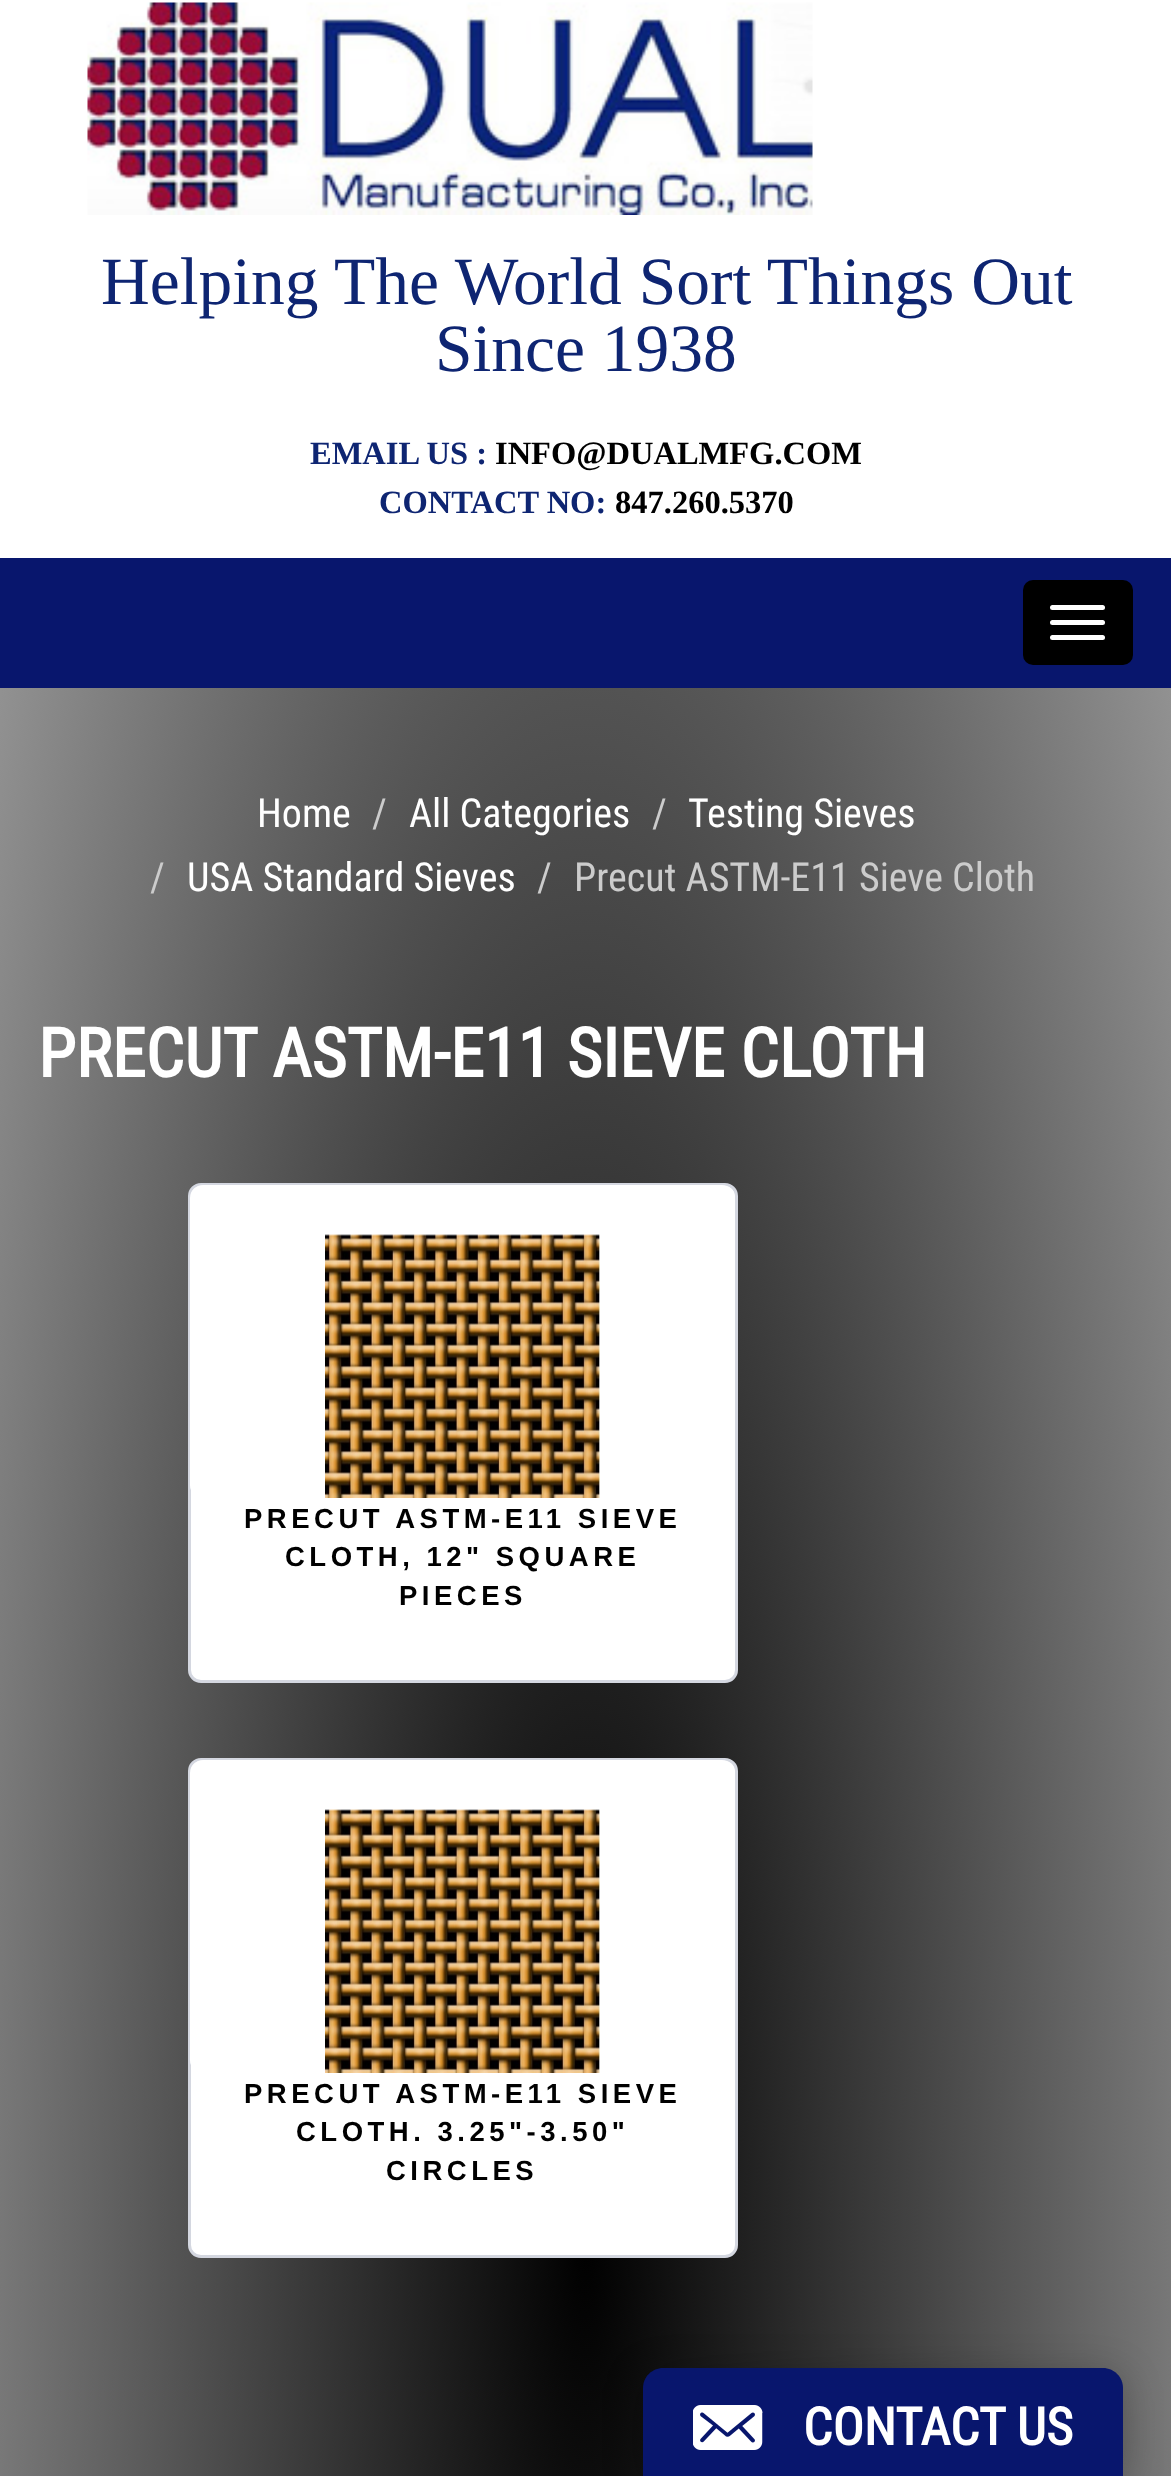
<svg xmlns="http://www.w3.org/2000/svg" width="1171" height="2476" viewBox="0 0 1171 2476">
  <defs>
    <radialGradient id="g1" gradientUnits="userSpaceOnUse" cx="0" cy="0" r="1" gradientTransform="matrix(829 0 0 3168 586 2240)"><stop offset="0" stop-color="rgb(0,0,0)"/><stop offset="1" stop-color="rgb(169,169,169)"/></radialGradient>
  </defs>
  <rect width="100%" height="100%" fill="rgb(255,255,255)"/>
  <rect x="0" y="688" width="1171" height="1788" fill="url(#g1)"/>
  <image x="87" y="2" width="726" height="213" href="pic1.png"/>
  <g font-family="Liberation Serif" font-size="67.5" fill="rgb(14,37,114)">
    <text x="101" y="304">Helping The World Sort Things Out</text>
    <text x="435" y="371">Since 1938</text>
  </g>
  <text x="310" y="464" font-family="Liberation Serif" font-size="32.5" font-weight="bold" fill="rgb(14,37,114)">EMAIL US :</text>
  <text x="495" y="464" font-family="Liberation Serif" font-size="32.5" font-weight="bold" fill="rgb(0,0,0)">INFO@DUALMFG.COM</text>
  <text x="379" y="513" font-family="Liberation Serif" font-size="32.5" font-weight="bold" fill="rgb(14,37,114)">CONTACT NO:</text>
  <text x="615" y="513" font-family="Liberation Serif" font-size="32.5" font-weight="bold" fill="rgb(0,0,0)">847.260.5370</text>
  <rect x="0" y="558" width="1171" height="130" fill="rgb(8,22,109)"/>
  <rect x="1023" y="580" width="110" height="85" rx="10" fill="rgb(0,0,0)"/>
  <rect x="1050" y="605" width="55" height="5" rx="2.5" fill="rgb(255,255,255)"/>
  <rect x="1050" y="620" width="55" height="5" rx="2.5" fill="rgb(255,255,255)"/>
  <rect x="1050" y="635" width="55" height="5" rx="2.5" fill="rgb(255,255,255)"/>
  <text x="257" y="827" font-family="Roboto Condensed" font-size="40" fill="rgb(255,255,255)">Home</text>
  <text x="372" y="827" font-family="Roboto Condensed" font-size="40" fill="rgb(204,204,204)">/</text>
  <text x="409" y="827" font-family="Roboto Condensed" font-size="40" fill="rgb(255,255,255)">All Categories</text>
  <text x="652" y="827" font-family="Roboto Condensed" font-size="40" fill="rgb(204,204,204)">/</text>
  <text x="688" y="827" font-family="Roboto Condensed" font-size="40" fill="rgb(255,255,255)">Testing Sieves</text>
  <text x="150" y="891" font-family="Roboto Condensed" font-size="40" fill="rgb(204,204,204)">/</text>
  <text x="187" y="891" font-family="Roboto Condensed" font-size="40" fill="rgb(255,255,255)">USA Standard Sieves</text>
  <g font-family="Roboto Condensed" font-size="40" fill="rgb(204,204,204)">
    <text x="537" y="891">/</text>
    <text x="574" y="891">Precut ASTM-E11 Sieve Cloth</text>
  </g>
  <text x="38" y="1077" font-family="Roboto Condensed" font-size="68" font-weight="bold" fill="rgb(255,255,255)">PRECUT ASTM-E11 SIEVE CLOTH</text>
  <rect x="189.5" y="1184.5" width="547" height="497" rx="11.5" fill="rgb(255,255,255)" stroke="rgb(212,215,224)" stroke-width="3"/>
  <rect x="190" y="1185" width="545" height="313" rx="13" fill="rgb(255,255,255)"/>
  <image x="325" y="1234" width="275" height="264" href="pic2.png"/>
  <g font-family="Liberation Sans" font-size="27.5" font-weight="bold" letter-spacing="4.5" fill="rgb(0,0,0)">
    <text x="244" y="1528">PRECUT ASTM-E11 SIEVE</text>
    <text x="285" y="1566">CLOTH, 12" SQUARE</text>
    <text x="399" y="1605">PIECES</text>
  </g>
  <rect x="189.5" y="1759.5" width="547" height="497" rx="11.5" fill="rgb(255,255,255)" stroke="rgb(212,215,224)" stroke-width="3"/>
  <rect x="190" y="1760" width="545" height="313" rx="13" fill="rgb(255,255,255)"/>
  <image x="325" y="1809" width="275" height="264" href="pic2.png"/>
  <g font-family="Liberation Sans" font-size="27.5" font-weight="bold" letter-spacing="4.5" fill="rgb(0,0,0)">
    <text x="244" y="2103">PRECUT ASTM-E11 SIEVE</text>
    <text x="296" y="2141">CLOTH. 3.25"-3.50"</text>
    <text x="386" y="2180">CIRCLES</text>
  </g>
  <rect x="643" y="2375" width="480" height="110" rx="20" fill="rgba(0,0,0,0.25)" filter="blur(19px)"/>
  <path d="M663 2368H1103C1114 2368 1123 2377 1123 2388V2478H643V2388C643 2377 652 2368 663 2368Z" fill="rgb(8,22,109)"/>
  <image x="693" y="2405" width="70" height="45" href="pic3.png"/>
  <text x="803" y="2445" font-family="Roboto Condensed" font-size="52" font-weight="bold" fill="rgb(255,255,255)">CONTACT US</text>
</svg>
